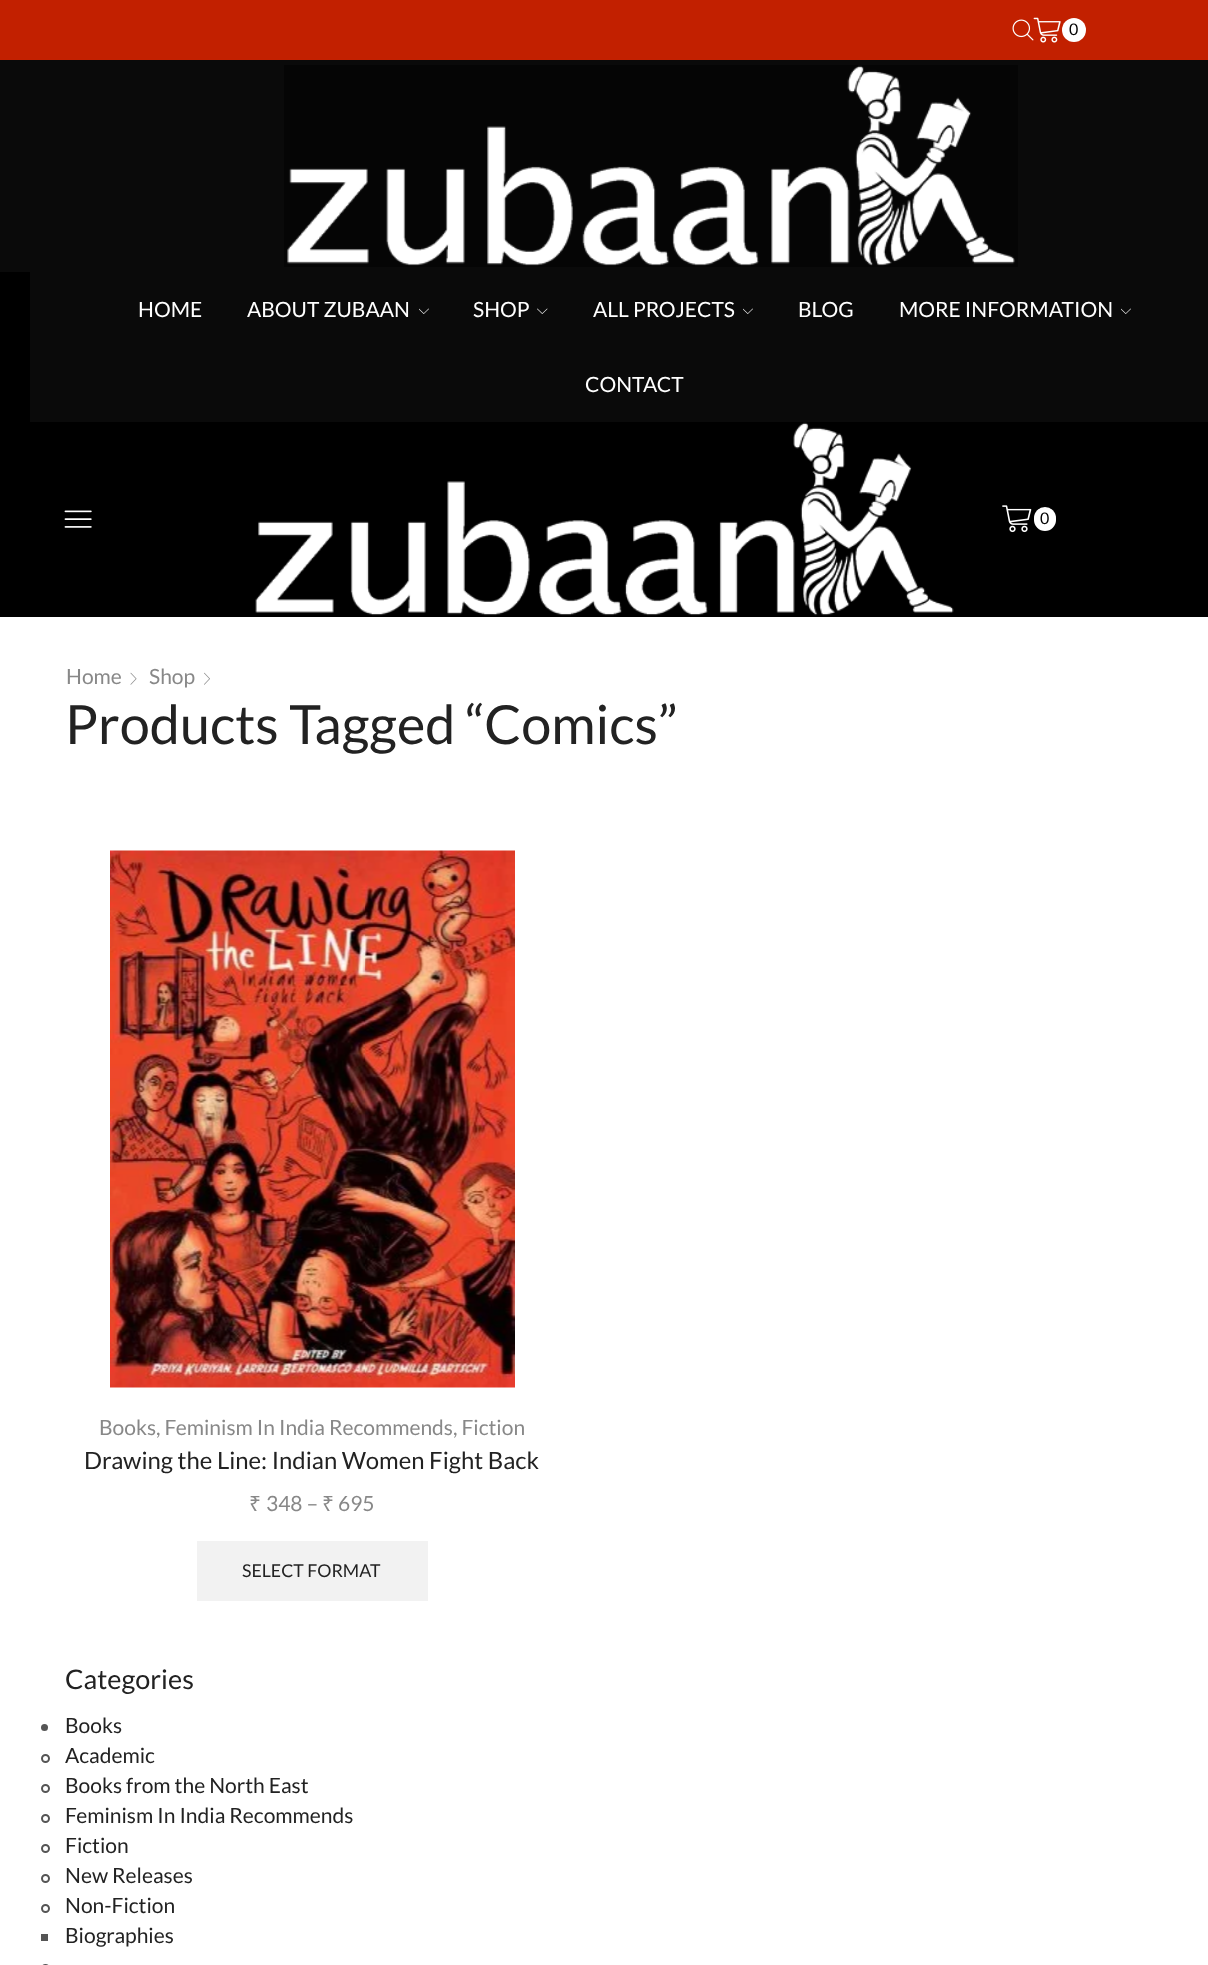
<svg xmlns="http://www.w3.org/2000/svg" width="1208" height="1965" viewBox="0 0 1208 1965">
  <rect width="100%" height="100%" fill="rgb(255,255,255)"/>
  <rect x="0" y="0" width="1208" height="60" fill="rgb(194,32,0)"/>
  <image x="1012" y="19" width="22" height="22" href="pic1.png"/>
  <image x="1033" y="17" width="28" height="26" href="pic2.png"/>
  <circle cx="1074" cy="30" r="12" fill="rgb(255,255,255)"/>
  <text x="1069" y="35" font-family="Lato" font-size="16" fill="rgb(0,0,0)">0</text>
  <rect x="0" y="60" width="1208" height="212" fill="rgb(10,10,10)"/>
  <image x="284" y="65" width="734" height="202" href="pic3.png"/>
  <rect x="30" y="272" width="1178" height="150" fill="rgb(10,10,10)"/>
  <rect x="0" y="272" width="30" height="150" fill="rgb(0,0,0)"/>
  <g font-family="Lato" font-size="21" fill="rgb(255,255,255)">
    <text x="138" y="317">HOME</text>
    <text x="247" y="317">ABOUT ZUBAAN</text>
  </g>
  <image x="419" y="308" width="10" height="6" href="pic4.png"/>
  <text x="473" y="317" font-family="Lato" font-size="21" fill="rgb(255,255,255)">SHOP</text>
  <image x="537" y="308" width="11" height="6" href="pic5.png"/>
  <text x="593" y="317" font-family="Lato" font-size="21" fill="rgb(255,255,255)">ALL PROJECTS</text>
  <image x="743" y="308" width="10" height="6" href="pic4.png"/>
  <g font-family="Lato" font-size="21" fill="rgb(255,255,255)">
    <text x="798" y="317">BLOG</text>
    <text x="899" y="317">MORE INFORMATION</text>
  </g>
  <image x="1121" y="308" width="10" height="6" href="pic4.png"/>
  <text x="585" y="392" font-family="Lato" font-size="21" fill="rgb(255,255,255)">CONTACT</text>
  <rect x="0" y="422" width="1208" height="195" fill="rgb(0,0,0)"/>
  <image x="64" y="510" width="28" height="18" href="pic6.png"/>
  <image x="252" y="422" width="705" height="194" href="pic7.png"/>
  <image x="1002" y="505" width="30" height="28" href="pic8.png"/>
  <rect x="1034" y="507" width="22" height="24" rx="11" fill="rgb(255,255,255)"/>
  <text x="1040" y="524" font-family="Lato" font-size="16" fill="rgb(0,0,0)">0</text>
  <text x="66" y="684" font-family="Lato" font-size="21" fill="rgb(136,136,136)">Home</text>
  <image x="130" y="672" width="7" height="13" href="pic9.png"/>
  <text x="149" y="684" font-family="Lato" font-size="21" fill="rgb(136,136,136)">Shop</text>
  <image x="204" y="672" width="6" height="13" href="pic10.png"/>
  <text x="65" y="744" font-family="Lato" font-size="54" fill="rgb(34,34,34)">Products Tagged “Comics”</text>
  <image x="110" y="850" width="405" height="538" href="pic11.png"/>
  <text x="99" y="1435" font-family="Lato" font-size="21" fill="rgb(136,136,136)">Books, Feminism In India Recommends, Fiction</text>
  <text x="84" y="1469" font-family="Lato" font-size="23.9" fill="rgb(34,34,34)">Drawing the Line: Indian Women Fight Back</text>
  <text x="249" y="1511" font-family="Noto Sans" font-size="21" fill="rgb(136,136,136)">₹</text>
  <text x="266" y="1511" font-family="Lato" font-size="21" fill="rgb(136,136,136)">348 –</text>
  <text x="322" y="1511" font-family="Noto Sans" font-size="21" fill="rgb(136,136,136)">₹</text>
  <text x="338" y="1511" font-family="Lato" font-size="21" fill="rgb(136,136,136)">695</text>
  <rect x="197" y="1541" width="231" height="60" fill="rgb(242,242,242)"/>
  <text x="242" y="1577" font-family="Lato" font-size="17.75" fill="rgb(34,34,34)">SELECT FORMAT</text>
  <text x="65" y="1689" font-family="Lato" font-size="27" fill="rgb(34,34,34)">Categories</text>
  <circle cx="44.5" cy="1727.5" r="3.5" fill="rgb(85,85,85)"/>
  <text x="65" y="1733" font-family="Lato" font-size="21" fill="rgb(34,34,34)">Books</text>
  <circle cx="45.5" cy="1758.5" r="3.5" fill="none" stroke="rgb(85,85,85)" stroke-width="2"/>
  <text x="65" y="1763" font-family="Lato" font-size="21" fill="rgb(34,34,34)">Academic</text>
  <circle cx="45.5" cy="1788.5" r="3.5" fill="none" stroke="rgb(85,85,85)" stroke-width="2"/>
  <text x="65" y="1793" font-family="Lato" font-size="21" fill="rgb(34,34,34)">Books from the North East</text>
  <circle cx="45.5" cy="1818.5" r="3.5" fill="none" stroke="rgb(85,85,85)" stroke-width="2"/>
  <text x="65" y="1823" font-family="Lato" font-size="21" fill="rgb(34,34,34)">Feminism In India Recommends</text>
  <circle cx="45.5" cy="1848.5" r="3.5" fill="none" stroke="rgb(85,85,85)" stroke-width="2"/>
  <text x="65" y="1853" font-family="Lato" font-size="21" fill="rgb(34,34,34)">Fiction</text>
  <circle cx="45.5" cy="1878.5" r="3.5" fill="none" stroke="rgb(85,85,85)" stroke-width="2"/>
  <text x="65" y="1883" font-family="Lato" font-size="21" fill="rgb(34,34,34)">New Releases</text>
  <circle cx="45.5" cy="1908.5" r="3.5" fill="none" stroke="rgb(85,85,85)" stroke-width="2"/>
  <text x="65" y="1913" font-family="Lato" font-size="21" fill="rgb(34,34,34)">Non-Fiction</text>
  <rect x="41" y="1934" width="7" height="7" fill="rgb(85,85,85)"/>
  <text x="65" y="1943" font-family="Lato" font-size="21" fill="rgb(34,34,34)">Biographies</text>
  <rect x="42" y="1965" width="7" height="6" rx="3.5" fill="none" stroke="rgb(85,85,85)" stroke-width="2"/>
</svg>
